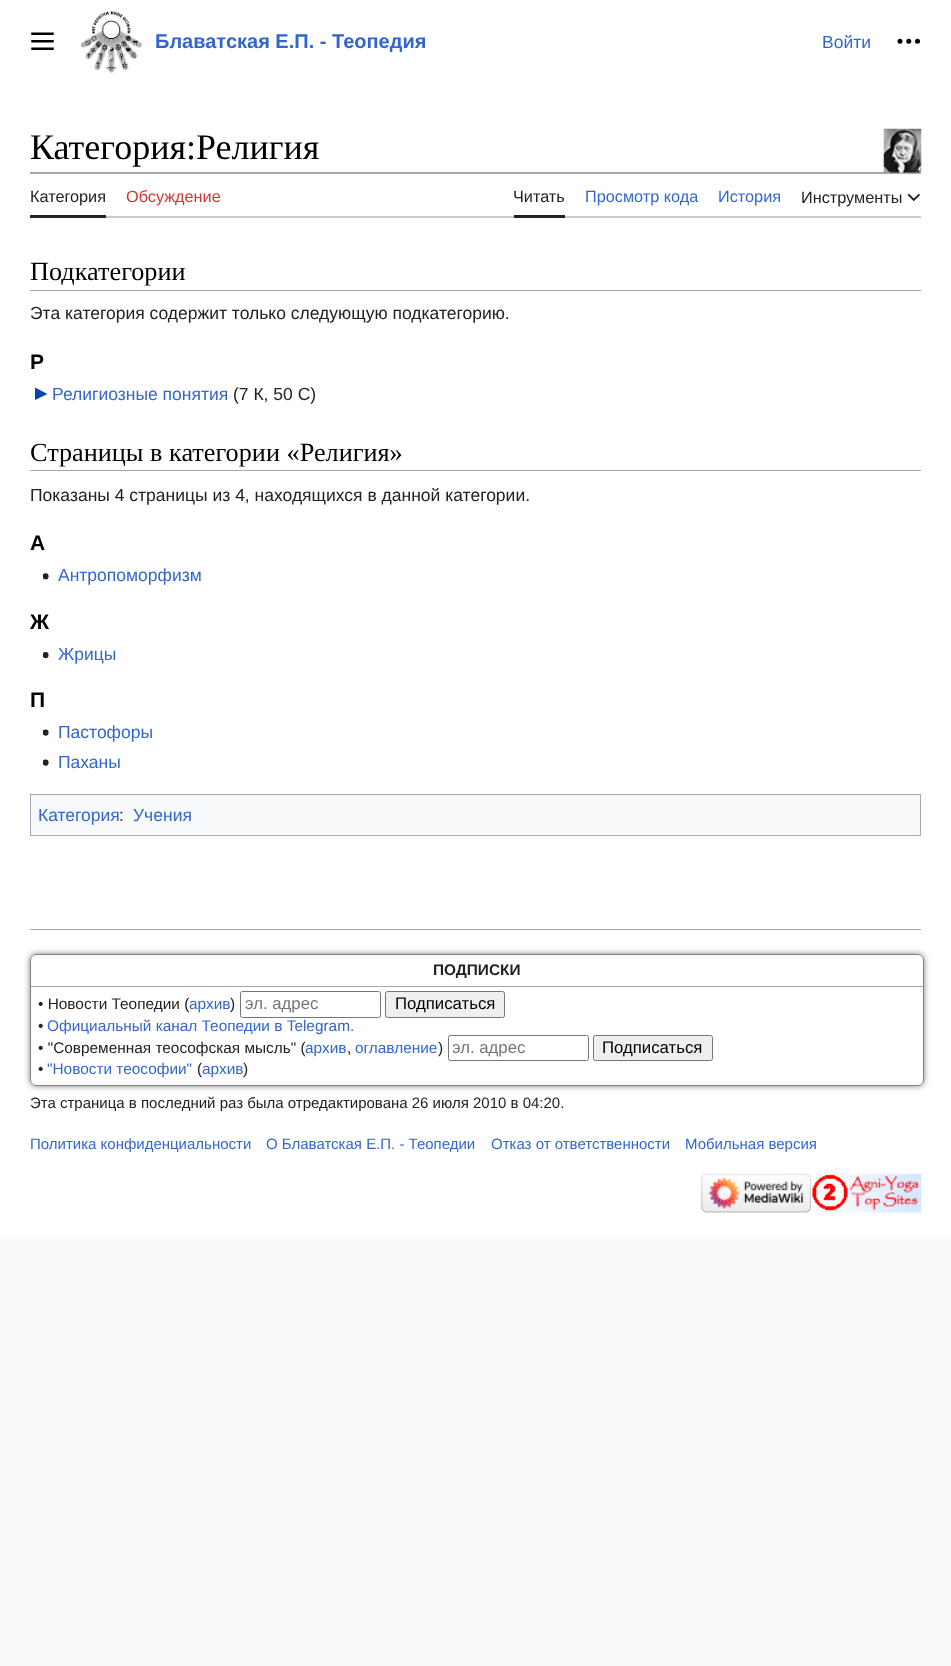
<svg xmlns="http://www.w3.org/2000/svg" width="951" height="1666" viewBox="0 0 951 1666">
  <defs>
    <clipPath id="clip1"><path d="M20 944H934V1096H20ZM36 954H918C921.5 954 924 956.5 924 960V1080C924 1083.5 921.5 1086 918 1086H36C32.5 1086 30 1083.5 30 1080V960C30 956.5 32.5 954 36 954Z" clip-rule="evenodd"/></clipPath>
    <clipPath id="clip2"><rect x="453" y="1039" width="131" height="19"/></clipPath>
  </defs>
  <rect width="100%" height="100%" fill="rgb(248,249,250)"/>
  <rect x="0" y="0" width="951" height="1239" fill="rgb(255,255,255)"/>
  <image x="31" y="32" width="23" height="18" href="pic1.png"/>
  <image x="80" y="11" width="63" height="62" href="pic2.png"/>
  <text x="155" y="48" font-family="Liberation Sans" font-size="20" font-weight="bold" fill="rgb(51,102,204)">Блаватская Е.П. - Теопедия</text>
  <text x="822" y="48" font-family="Liberation Sans" font-size="17.5" fill="rgb(51,102,204)">Войти</text>
  <image x="897" y="38" width="24" height="6" href="pic3.png"/>
  <rect x="30" y="172" width="891" height="2" fill="rgb(162,169,177)"/>
  <image x="883" y="128" width="39" height="45" href="pic4.png"/>
  <text x="30" y="159" font-family="Liberation Serif" font-size="36" fill="rgb(0,0,0)">Категория:Религия</text>
  <rect x="106" y="216" width="815" height="2" fill="rgb(200,204,209)"/>
  <rect x="30" y="215" width="76" height="3" fill="rgb(32,33,34)"/>
  <text x="30" y="202" font-family="Liberation Sans" font-size="16.25" fill="rgb(32,33,34)">Категория</text>
  <text x="126" y="202" font-family="Liberation Sans" font-size="16.25" fill="rgb(215,51,51)">Обсуждение</text>
  <rect x="514" y="215" width="51" height="3" fill="rgb(32,33,34)"/>
  <text x="513" y="202" font-family="Liberation Sans" font-size="16.25" fill="rgb(32,33,34)">Читать</text>
  <g font-family="Liberation Sans" font-size="16.25" fill="rgb(51,102,204)">
    <text x="585" y="202">Просмотр кода</text>
    <text x="718" y="202">История</text>
  </g>
  <text x="801" y="203" font-family="Liberation Sans" font-size="16.25" fill="rgb(32,33,34)">Инструменты</text>
  <image x="907" y="193" width="13" height="9" href="pic5.png"/>
  <rect x="30" y="290" width="891" height="1" fill="rgb(162,169,177)"/>
  <text x="30" y="280" font-family="Liberation Serif" font-size="26.25" fill="rgb(0,0,0)">Подкатегории</text>
  <text x="30" y="319" font-family="Liberation Sans" font-size="17.5" fill="rgb(32,33,34)">Эта категория содержит только следующую подкатегорию.</text>
  <text x="30" y="369" font-family="Liberation Sans" font-size="21" font-weight="bold" fill="rgb(0,0,0)">Р</text>
  <path d="M35 400V387.5L47.5 394Z" fill="rgb(6,69,173)"/>
  <text x="52" y="400" font-family="Liberation Sans" font-size="17.5" fill="rgb(51,102,204)">Религиозные понятия</text>
  <text x="233" y="400" font-family="Liberation Sans" font-size="17.5" fill="rgb(32,33,34)">(7 К, 50 С)</text>
  <rect x="30" y="470" width="891" height="1" fill="rgb(162,169,177)"/>
  <text x="30" y="461" font-family="Liberation Serif" font-size="26.25" fill="rgb(0,0,0)">Страницы в категории «Религия»</text>
  <text x="30" y="501" font-family="Liberation Sans" font-size="17.5" fill="rgb(32,33,34)">Показаны 4 страницы из 4, находящихся в данной категории.</text>
  <text x="30" y="550" font-family="Liberation Sans" font-size="21" font-weight="bold" fill="rgb(0,0,0)">А</text>
  <image x="43" y="573" width="6" height="7" href="pic6.png"/>
  <text x="58" y="581" font-family="Liberation Sans" font-size="17.5" fill="rgb(51,102,204)">Антропоморфизм</text>
  <text x="30" y="629" font-family="Liberation Sans" font-size="21" font-weight="bold" fill="rgb(0,0,0)">Ж</text>
  <image x="43" y="652" width="6" height="7" href="pic7.png"/>
  <text x="58" y="660" font-family="Liberation Sans" font-size="17.5" fill="rgb(51,102,204)">Жрицы</text>
  <text x="30" y="707" font-family="Liberation Sans" font-size="21" font-weight="bold" fill="rgb(0,0,0)">П</text>
  <image x="43" y="729" width="6" height="7" href="pic8.png"/>
  <text x="58" y="738" font-family="Liberation Sans" font-size="17.5" fill="rgb(51,102,204)">Пастофоры</text>
  <image x="43" y="759" width="6" height="7" href="pic9.png"/>
  <text x="58" y="768" font-family="Liberation Sans" font-size="17.5" fill="rgb(51,102,204)">Паханы</text>
  <rect x="30.5" y="794.5" width="890" height="41" fill="rgb(248,249,250)" stroke="rgb(162,169,177)"/>
  <text x="38" y="821" font-family="Liberation Sans" font-size="17.5" fill="rgb(51,102,204)">Категория</text>
  <text x="119" y="821" font-family="Liberation Sans" font-size="17.5" fill="rgb(32,33,34)">:</text>
  <text x="133" y="821" font-family="Liberation Sans" font-size="17.5" fill="rgb(51,102,204)">Учения</text>
  <rect x="30" y="929" width="891" height="1" fill="rgb(162,169,177)"/>
  <g clip-path="url(#clip1)">
    <rect x="30" y="954" width="894" height="132" rx="6" fill="rgba(0,0,0,0.5)" filter="blur(3px)"/>
  </g>
  <rect x="30.5" y="954.5" width="893" height="131" rx="5.5" fill="none" stroke="rgb(128,128,128)"/>
  <text x="433" y="975" font-family="Liberation Sans" font-size="15.4" font-weight="bold" fill="rgb(32,33,34)">ПОДПИСКИ</text>
  <rect x="31" y="986" width="892" height="1" fill="rgb(162,169,177)"/>
  <text x="38" y="1009" font-family="Liberation Sans" font-size="15.4" fill="rgb(32,33,34)">• Новости Теопедии (</text>
  <text x="189" y="1009" font-family="Liberation Sans" font-size="15.4" fill="rgb(51,102,204)">архив</text>
  <text x="230" y="1009" font-family="Liberation Sans" font-size="15.4" fill="rgb(32,33,34)">)</text>
  <rect x="240.5" y="991.5" width="140" height="26" rx="2" fill="none" stroke="rgb(118,118,118)"/>
  <text x="245" y="1009" font-family="Liberation Sans" font-size="16.75" fill="rgb(117,117,117)">эл. адрес</text>
  <rect x="385.5" y="991.5" width="119" height="26" rx="2" fill="rgb(239,239,239)" stroke="rgb(118,118,118)"/>
  <text x="395" y="1009" font-family="Liberation Sans" font-size="16.75" fill="rgb(0,0,0)">Подписаться</text>
  <text x="38" y="1031" font-family="Liberation Sans" font-size="15.4" fill="rgb(32,33,34)">•</text>
  <text x="47" y="1031" font-family="Liberation Sans" font-size="15.4" fill="rgb(51,102,204)">Официальный канал Теопедии в Telegram.</text>
  <text x="38" y="1053" font-family="Liberation Sans" font-size="15.4" fill="rgb(32,33,34)">• "Современная теософская мысль" (</text>
  <text x="305" y="1053" font-family="Liberation Sans" font-size="15.4" fill="rgb(51,102,204)">архив</text>
  <text x="347" y="1053" font-family="Liberation Sans" font-size="15.4" fill="rgb(32,33,34)">,</text>
  <text x="355" y="1053" font-family="Liberation Sans" font-size="15.4" fill="rgb(51,102,204)">оглавление</text>
  <text x="438" y="1053" font-family="Liberation Sans" font-size="15.4" fill="rgb(32,33,34)">)</text>
  <rect x="448.5" y="1035.5" width="140" height="25" rx="2" fill="none" stroke="rgb(118,118,118)"/>
  <g clip-path="url(#clip2)">
    <text x="452" y="1053" font-family="Liberation Sans" font-size="16.75" fill="rgb(117,117,117)">эл. адрес</text>
  </g>
  <rect x="593.5" y="1035.5" width="119" height="25" rx="2" fill="rgb(239,239,239)" stroke="rgb(118,118,118)"/>
  <text x="602" y="1053" font-family="Liberation Sans" font-size="16.75" fill="rgb(0,0,0)">Подписаться</text>
  <text x="38" y="1074" font-family="Liberation Sans" font-size="15.4" fill="rgb(32,33,34)">•</text>
  <text x="47" y="1074" font-family="Liberation Sans" font-size="15.4" fill="rgb(51,102,204)">"Новости теософии"</text>
  <text x="197" y="1074" font-family="Liberation Sans" font-size="15.4" fill="rgb(32,33,34)">(</text>
  <text x="202" y="1074" font-family="Liberation Sans" font-size="15.4" fill="rgb(51,102,204)">архив</text>
  <text x="243" y="1074" font-family="Liberation Sans" font-size="15.4" fill="rgb(32,33,34)">)</text>
  <text x="30" y="1108" font-family="Liberation Sans" font-size="15" fill="rgb(32,33,34)">Эта страница в последний раз была отредактирована 26 июля 2010 в 04:20.</text>
  <g font-family="Liberation Sans" font-size="15" fill="rgb(51,102,204)">
    <text x="30" y="1149">Политика конфиденциальности</text>
    <text x="266" y="1149">О Блаватская Е.П. - Теопедии</text>
    <text x="491" y="1149">Отказ от ответственности</text>
    <text x="685" y="1149">Мобильная версия</text>
  </g>
  <image x="701" y="1173" width="111" height="40" href="pic10.png"/>
  <image x="811" y="1173" width="111" height="40" href="pic11.png"/>
</svg>
